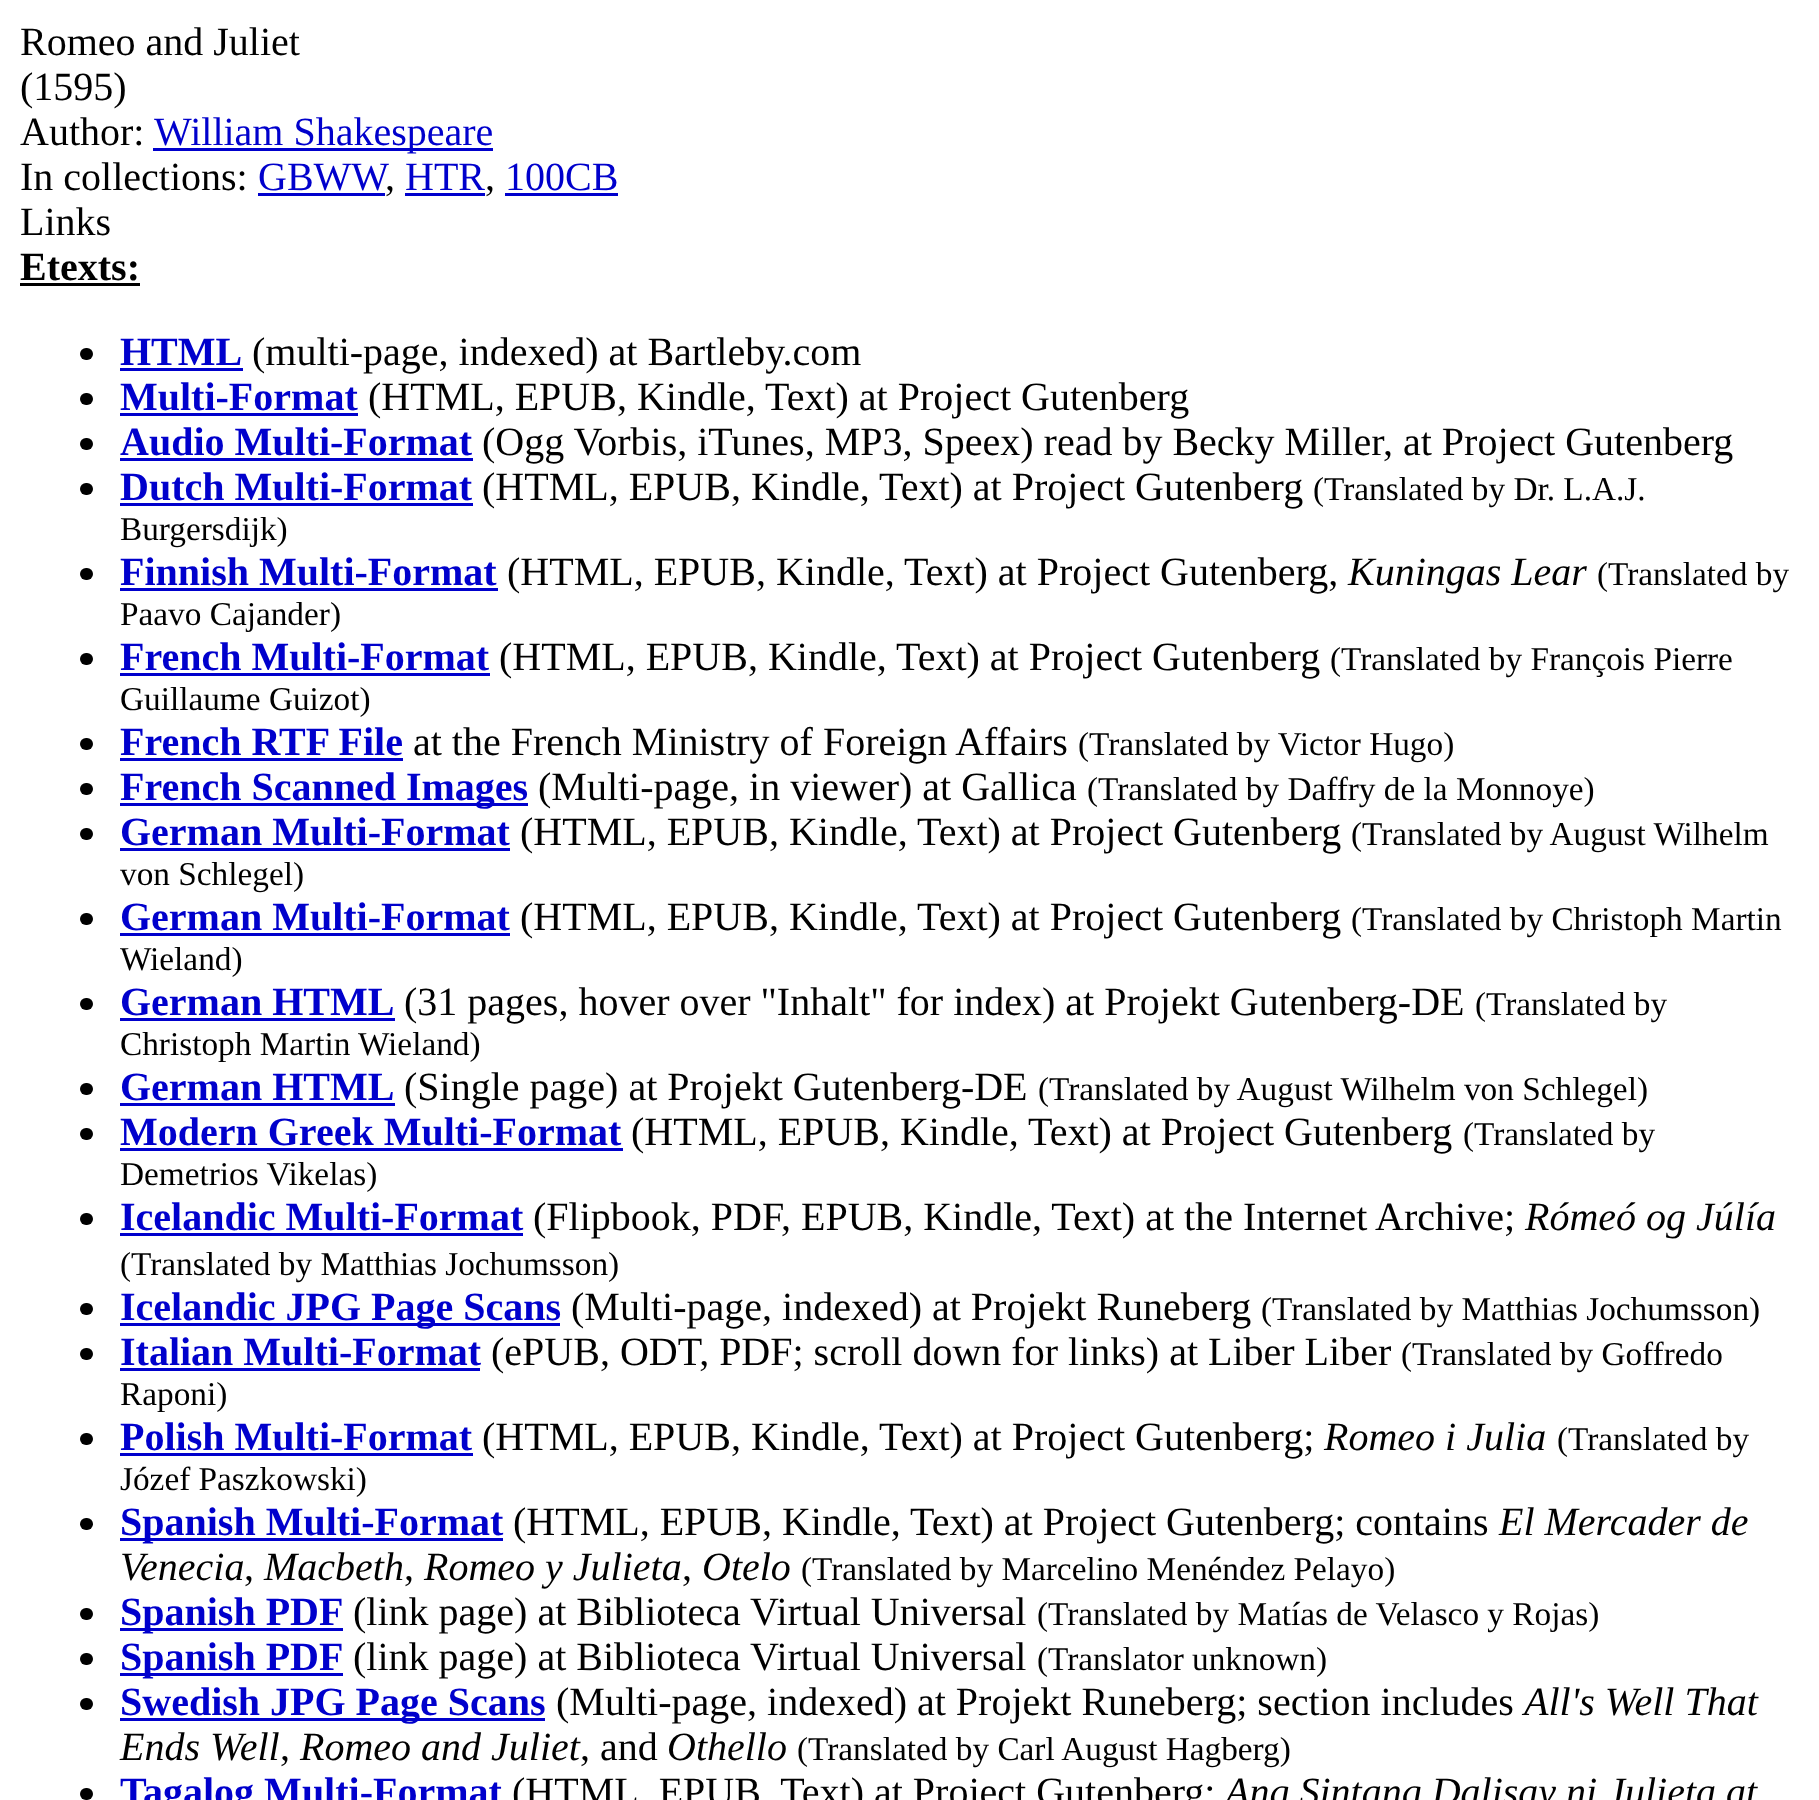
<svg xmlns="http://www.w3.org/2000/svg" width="1819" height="1800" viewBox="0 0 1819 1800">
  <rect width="100%" height="100%" fill="rgb(255,255,255)"/>
  <g font-family="Liberation Serif" font-size="40" fill="rgb(0,0,0)">
    <text>
      <tspan x="20" y="55">Romeo and Juliet</tspan>
      <tspan x="20" y="100">(1595)</tspan>
      <tspan x="20" y="145">Author:</tspan>
    </text>
  </g>
  <rect x="153" y="148" width="340" height="3" fill="rgb(0,0,204)"/>
  <text x="154" y="145" font-family="Liberation Serif" font-size="40" fill="rgb(0,0,204)">William Shakespeare</text>
  <text x="20" y="190" font-family="Liberation Serif" font-size="40" fill="rgb(0,0,0)">In collections:</text>
  <text x="258" y="190" font-family="Liberation Serif" font-size="40" fill="rgb(0,0,204)">GBWW</text>
  <rect x="258" y="193" width="127" height="3" fill="rgb(0,0,204)"/>
  <text x="385" y="190" font-family="Liberation Serif" font-size="40" fill="rgb(0,0,0)">,</text>
  <text x="405" y="190" font-family="Liberation Serif" font-size="40" fill="rgb(0,0,204)">HTR</text>
  <rect x="405" y="193" width="80" height="3" fill="rgb(0,0,204)"/>
  <text x="485" y="190" font-family="Liberation Serif" font-size="40" fill="rgb(0,0,0)">,</text>
  <text x="505" y="190" font-family="Liberation Serif" font-size="40" fill="rgb(0,0,204)">100CB</text>
  <rect x="505" y="193" width="113" height="3" fill="rgb(0,0,204)"/>
  <text x="20" y="235" font-family="Liberation Serif" font-size="40" fill="rgb(0,0,0)">Links</text>
  <text x="20" y="280" font-family="Liberation Serif" font-size="40" font-weight="bold" fill="rgb(0,0,0)">Etexts:</text>
  <rect x="20" y="283" width="120" height="3" fill="rgb(0,0,0)"/>
  <rect x="80" y="348" width="13" height="12" rx="6" fill="rgb(0,0,0)"/>
  <text x="120" y="365" font-family="Liberation Serif" font-size="40" font-weight="bold" fill="rgb(0,0,204)">HTML</text>
  <rect x="120" y="368" width="123" height="3" fill="rgb(0,0,204)"/>
  <text x="252" y="365" font-family="Liberation Serif" font-size="40" fill="rgb(0,0,0)">(multi-page, indexed) at Bartleby.com</text>
  <rect x="80" y="393" width="13" height="12" rx="6" fill="rgb(0,0,0)"/>
  <text x="120" y="410" font-family="Liberation Serif" font-size="40" font-weight="bold" fill="rgb(0,0,204)">Multi-Format</text>
  <rect x="120" y="413" width="238" height="3" fill="rgb(0,0,204)"/>
  <text x="368" y="410" font-family="Liberation Serif" font-size="40" fill="rgb(0,0,0)">(HTML, EPUB, Kindle, Text) at Project Gutenberg</text>
  <rect x="80" y="438" width="13" height="12" rx="6" fill="rgb(0,0,0)"/>
  <text x="120" y="455" font-family="Liberation Serif" font-size="40" font-weight="bold" fill="rgb(0,0,204)">Audio Multi-Format</text>
  <rect x="120" y="458" width="353" height="3" fill="rgb(0,0,204)"/>
  <text x="482" y="455" font-family="Liberation Serif" font-size="40" fill="rgb(0,0,0)">(Ogg Vorbis, iTunes, MP3, Speex) read by Becky Miller, at Project Gutenberg</text>
  <rect x="80" y="483" width="13" height="12" rx="6" fill="rgb(0,0,0)"/>
  <text x="120" y="500" font-family="Liberation Serif" font-size="40" font-weight="bold" fill="rgb(0,0,204)">Dutch Multi-Format</text>
  <rect x="120" y="503" width="353" height="3" fill="rgb(0,0,204)"/>
  <text x="482" y="500" font-family="Liberation Serif" font-size="40" fill="rgb(0,0,0)">(HTML, EPUB, Kindle, Text) at Project Gutenberg</text>
  <g font-family="Liberation Serif" font-size="33.3" fill="rgb(0,0,0)">
    <text x="1313" y="500">(Translated by Dr. L.A.J.</text>
    <text x="120" y="540">Burgersdijk)</text>
  </g>
  <rect x="80" y="568" width="13" height="12" rx="6" fill="rgb(0,0,0)"/>
  <text x="120" y="585" font-family="Liberation Serif" font-size="40" font-weight="bold" fill="rgb(0,0,204)">Finnish Multi-Format</text>
  <rect x="120" y="588" width="378" height="3" fill="rgb(0,0,204)"/>
  <text x="507" y="585" font-family="Liberation Serif" font-size="40" fill="rgb(0,0,0)">(HTML, EPUB, Kindle, Text) at Project Gutenberg,</text>
  <text x="1348" y="585" font-family="Liberation Serif" font-size="40" font-style="italic" fill="rgb(0,0,0)">Kuningas Lear</text>
  <g font-family="Liberation Serif" font-size="33.3" fill="rgb(0,0,0)">
    <text x="1597" y="585">(Translated by</text>
    <text x="120" y="625">Paavo Cajander)</text>
  </g>
  <rect x="80" y="653" width="13" height="12" rx="6" fill="rgb(0,0,0)"/>
  <text x="120" y="670" font-family="Liberation Serif" font-size="40" font-weight="bold" fill="rgb(0,0,204)">French Multi-Format</text>
  <rect x="120" y="673" width="370" height="3" fill="rgb(0,0,204)"/>
  <text x="499" y="670" font-family="Liberation Serif" font-size="40" fill="rgb(0,0,0)">(HTML, EPUB, Kindle, Text) at Project Gutenberg</text>
  <g font-family="Liberation Serif" font-size="33.3" fill="rgb(0,0,0)">
    <text x="1330" y="670">(Translated by François Pierre</text>
    <text x="120" y="710">Guillaume Guizot)</text>
  </g>
  <rect x="80" y="738" width="13" height="12" rx="6" fill="rgb(0,0,0)"/>
  <text x="120" y="755" font-family="Liberation Serif" font-size="40" font-weight="bold" fill="rgb(0,0,204)">French RTF File</text>
  <rect x="120" y="758" width="283" height="3" fill="rgb(0,0,204)"/>
  <text x="413" y="755" font-family="Liberation Serif" font-size="40" fill="rgb(0,0,0)">at the French Ministry of Foreign Affairs</text>
  <text x="1078" y="755" font-family="Liberation Serif" font-size="33.3" fill="rgb(0,0,0)">(Translated by Victor Hugo)</text>
  <rect x="80" y="783" width="13" height="12" rx="6" fill="rgb(0,0,0)"/>
  <rect x="120" y="803" width="408" height="3" fill="rgb(0,0,204)"/>
  <text x="120" y="800" font-family="Liberation Serif" font-size="40" font-weight="bold" fill="rgb(0,0,204)">French Scanned Images</text>
  <text x="538" y="800" font-family="Liberation Serif" font-size="40" fill="rgb(0,0,0)">(Multi-page, in viewer) at Gallica</text>
  <text x="1087" y="800" font-family="Liberation Serif" font-size="33.3" fill="rgb(0,0,0)">(Translated by Daffry de la Monnoye)</text>
  <rect x="80" y="828" width="13" height="12" rx="6" fill="rgb(0,0,0)"/>
  <text x="120" y="845" font-family="Liberation Serif" font-size="40" font-weight="bold" fill="rgb(0,0,204)">German Multi-Format</text>
  <rect x="120" y="848" width="390" height="3" fill="rgb(0,0,204)"/>
  <text x="520" y="845" font-family="Liberation Serif" font-size="40" fill="rgb(0,0,0)">(HTML, EPUB, Kindle, Text) at Project Gutenberg</text>
  <g font-family="Liberation Serif" font-size="33.3" fill="rgb(0,0,0)">
    <text x="1351" y="845">(Translated by August Wilhelm</text>
    <text x="120" y="885">von Schlegel)</text>
  </g>
  <rect x="80" y="913" width="13" height="12" rx="6" fill="rgb(0,0,0)"/>
  <text x="120" y="930" font-family="Liberation Serif" font-size="40" font-weight="bold" fill="rgb(0,0,204)">German Multi-Format</text>
  <rect x="120" y="933" width="390" height="3" fill="rgb(0,0,204)"/>
  <text x="520" y="930" font-family="Liberation Serif" font-size="40" fill="rgb(0,0,0)">(HTML, EPUB, Kindle, Text) at Project Gutenberg</text>
  <g font-family="Liberation Serif" font-size="33.3" fill="rgb(0,0,0)">
    <text x="1351" y="930">(Translated by Christoph Martin</text>
    <text x="120" y="970">Wieland)</text>
  </g>
  <rect x="80" y="998" width="13" height="12" rx="6" fill="rgb(0,0,0)"/>
  <text x="120" y="1015" font-family="Liberation Serif" font-size="40" font-weight="bold" fill="rgb(0,0,204)">German HTML</text>
  <rect x="120" y="1018" width="275" height="3" fill="rgb(0,0,204)"/>
  <text x="404" y="1015" font-family="Liberation Serif" font-size="40" fill="rgb(0,0,0)">(31 pages, hover over "Inhalt" for index) at Projekt Gutenberg-DE</text>
  <g font-family="Liberation Serif" font-size="33.3" fill="rgb(0,0,0)">
    <text x="1475" y="1015">(Translated by</text>
    <text x="120" y="1055">Christoph Martin Wieland)</text>
  </g>
  <rect x="80" y="1083" width="13" height="12" rx="6" fill="rgb(0,0,0)"/>
  <text x="120" y="1100" font-family="Liberation Serif" font-size="40" font-weight="bold" fill="rgb(0,0,204)">German HTML</text>
  <rect x="120" y="1103" width="275" height="3" fill="rgb(0,0,204)"/>
  <text x="404" y="1100" font-family="Liberation Serif" font-size="40" fill="rgb(0,0,0)">(Single page) at Projekt Gutenberg-DE</text>
  <text x="1038" y="1100" font-family="Liberation Serif" font-size="33.3" fill="rgb(0,0,0)">(Translated by August Wilhelm von Schlegel)</text>
  <rect x="80" y="1128" width="13" height="12" rx="6" fill="rgb(0,0,0)"/>
  <text x="120" y="1145" font-family="Liberation Serif" font-size="40" font-weight="bold" fill="rgb(0,0,204)">Modern Greek Multi-Format</text>
  <rect x="120" y="1148" width="503" height="3" fill="rgb(0,0,204)"/>
  <text x="631" y="1145" font-family="Liberation Serif" font-size="40" fill="rgb(0,0,0)">(HTML, EPUB, Kindle, Text) at Project Gutenberg</text>
  <g font-family="Liberation Serif" font-size="33.3" fill="rgb(0,0,0)">
    <text x="1463" y="1145">(Translated by</text>
    <text x="120" y="1185">Demetrios Vikelas)</text>
  </g>
  <rect x="80" y="1213" width="13" height="12" rx="6" fill="rgb(0,0,0)"/>
  <text x="120" y="1230" font-family="Liberation Serif" font-size="40" font-weight="bold" fill="rgb(0,0,204)">Icelandic Multi-Format</text>
  <rect x="120" y="1233" width="403" height="3" fill="rgb(0,0,204)"/>
  <text x="533" y="1230" font-family="Liberation Serif" font-size="40" fill="rgb(0,0,0)">(Flipbook, PDF, EPUB, Kindle, Text) at the Internet Archive;</text>
  <text x="1525" y="1230" font-family="Liberation Serif" font-size="40" font-style="italic" fill="rgb(0,0,0)">Rómeó og Júlía</text>
  <text x="120" y="1275" font-family="Liberation Serif" font-size="33.3" fill="rgb(0,0,0)">(Translated by Matthias Jochumsson)</text>
  <rect x="80" y="1303" width="13" height="12" rx="6" fill="rgb(0,0,0)"/>
  <rect x="120" y="1323" width="440" height="3" fill="rgb(0,0,204)"/>
  <text x="120" y="1320" font-family="Liberation Serif" font-size="40" font-weight="bold" fill="rgb(0,0,204)">Icelandic JPG Page Scans</text>
  <text x="571" y="1320" font-family="Liberation Serif" font-size="40" fill="rgb(0,0,0)">(Multi-page, indexed) at Projekt Runeberg</text>
  <text x="1261" y="1320" font-family="Liberation Serif" font-size="33.3" fill="rgb(0,0,0)">(Translated by Matthias Jochumsson)</text>
  <rect x="80" y="1348" width="13" height="12" rx="6" fill="rgb(0,0,0)"/>
  <text x="120" y="1365" font-family="Liberation Serif" font-size="40" font-weight="bold" fill="rgb(0,0,204)">Italian Multi-Format</text>
  <rect x="120" y="1368" width="360" height="3" fill="rgb(0,0,204)"/>
  <text x="491" y="1365" font-family="Liberation Serif" font-size="40" fill="rgb(0,0,0)">(ePUB, ODT, PDF; scroll down for links) at Liber Liber</text>
  <g font-family="Liberation Serif" font-size="33.3" fill="rgb(0,0,0)">
    <text x="1401" y="1365">(Translated by Goffredo</text>
    <text x="120" y="1405">Raponi)</text>
  </g>
  <rect x="80" y="1433" width="13" height="12" rx="6" fill="rgb(0,0,0)"/>
  <text x="120" y="1450" font-family="Liberation Serif" font-size="40" font-weight="bold" fill="rgb(0,0,204)">Polish Multi-Format</text>
  <rect x="120" y="1453" width="353" height="3" fill="rgb(0,0,204)"/>
  <text x="482" y="1450" font-family="Liberation Serif" font-size="40" fill="rgb(0,0,0)">(HTML, EPUB, Kindle, Text) at Project Gutenberg;</text>
  <text x="1324" y="1450" font-family="Liberation Serif" font-size="40" font-style="italic" fill="rgb(0,0,0)">Romeo i Julia</text>
  <g font-family="Liberation Serif" font-size="33.3" fill="rgb(0,0,0)">
    <text x="1557" y="1450">(Translated by</text>
    <text x="120" y="1490">Józef Paszkowski)</text>
  </g>
  <rect x="80" y="1518" width="13" height="12" rx="6" fill="rgb(0,0,0)"/>
  <rect x="120" y="1538" width="383" height="3" fill="rgb(0,0,204)"/>
  <text x="120" y="1535" font-family="Liberation Serif" font-size="40" font-weight="bold" fill="rgb(0,0,204)">Spanish Multi-Format</text>
  <text x="513" y="1535" font-family="Liberation Serif" font-size="40" fill="rgb(0,0,0)">(HTML, EPUB, Kindle, Text) at Project Gutenberg; contains</text>
  <g font-family="Liberation Serif" font-size="40" font-style="italic" fill="rgb(0,0,0)">
    <text x="1499" y="1535">El Mercader de</text>
    <text x="120" y="1580">Venecia</text>
  </g>
  <text x="244" y="1580" font-family="Liberation Serif" font-size="40" fill="rgb(0,0,0)">,</text>
  <text x="264" y="1580" font-family="Liberation Serif" font-size="40" font-style="italic" fill="rgb(0,0,0)">Macbeth</text>
  <text x="404" y="1580" font-family="Liberation Serif" font-size="40" fill="rgb(0,0,0)">,</text>
  <text x="424" y="1580" font-family="Liberation Serif" font-size="40" font-style="italic" fill="rgb(0,0,0)">Romeo y Julieta</text>
  <text x="682" y="1580" font-family="Liberation Serif" font-size="40" fill="rgb(0,0,0)">,</text>
  <text x="702" y="1580" font-family="Liberation Serif" font-size="40" font-style="italic" fill="rgb(0,0,0)">Otelo</text>
  <text x="801" y="1580" font-family="Liberation Serif" font-size="33.3" fill="rgb(0,0,0)">(Translated by Marcelino Menéndez Pelayo)</text>
  <rect x="80" y="1608" width="13" height="12" rx="6" fill="rgb(0,0,0)"/>
  <rect x="120" y="1628" width="223" height="3" fill="rgb(0,0,204)"/>
  <text x="120" y="1625" font-family="Liberation Serif" font-size="40" font-weight="bold" fill="rgb(0,0,204)">Spanish PDF</text>
  <text x="353" y="1625" font-family="Liberation Serif" font-size="40" fill="rgb(0,0,0)">(link page) at Biblioteca Virtual Universal</text>
  <text x="1037" y="1625" font-family="Liberation Serif" font-size="33.3" fill="rgb(0,0,0)">(Translated by Matías de Velasco y Rojas)</text>
  <rect x="80" y="1653" width="13" height="12" rx="6" fill="rgb(0,0,0)"/>
  <rect x="120" y="1673" width="223" height="3" fill="rgb(0,0,204)"/>
  <text x="120" y="1670" font-family="Liberation Serif" font-size="40" font-weight="bold" fill="rgb(0,0,204)">Spanish PDF</text>
  <text x="353" y="1670" font-family="Liberation Serif" font-size="40" fill="rgb(0,0,0)">(link page) at Biblioteca Virtual Universal</text>
  <text x="1037" y="1670" font-family="Liberation Serif" font-size="33.3" fill="rgb(0,0,0)">(Translator unknown)</text>
  <rect x="80" y="1698" width="13" height="12" rx="6" fill="rgb(0,0,0)"/>
  <rect x="120" y="1718" width="425" height="3" fill="rgb(0,0,204)"/>
  <text x="120" y="1715" font-family="Liberation Serif" font-size="40" font-weight="bold" fill="rgb(0,0,204)">Swedish JPG Page Scans</text>
  <text x="556" y="1715" font-family="Liberation Serif" font-size="40" fill="rgb(0,0,0)">(Multi-page, indexed) at Projekt Runeberg; section includes</text>
  <g font-family="Liberation Serif" font-size="40" font-style="italic" fill="rgb(0,0,0)">
    <text x="1524" y="1715">All's Well That</text>
    <text x="120" y="1760">Ends Well</text>
  </g>
  <text x="280" y="1760" font-family="Liberation Serif" font-size="40" fill="rgb(0,0,0)">,</text>
  <text x="300" y="1760" font-family="Liberation Serif" font-size="40" font-style="italic" fill="rgb(0,0,0)">Romeo and Juliet</text>
  <text x="580" y="1760" font-family="Liberation Serif" font-size="40" fill="rgb(0,0,0)">, and</text>
  <text x="667" y="1760" font-family="Liberation Serif" font-size="40" font-style="italic" fill="rgb(0,0,0)">Othello</text>
  <text x="797" y="1760" font-family="Liberation Serif" font-size="33.3" fill="rgb(0,0,0)">(Translated by Carl August Hagberg)</text>
  <rect x="80" y="1788" width="13" height="12" rx="6" fill="rgb(0,0,0)"/>
  <text x="120" y="1805" font-family="Liberation Serif" font-size="40" font-weight="bold" fill="rgb(0,0,204)">Tagalog Multi-Format</text>
  <text x="512" y="1805" font-family="Liberation Serif" font-size="40" fill="rgb(0,0,0)">(HTML, EPUB, Text) at Project Gutenberg;</text>
  <text x="1225" y="1805" font-family="Liberation Serif" font-size="40" font-style="italic" fill="rgb(0,0,0)">Ang Sintang Dalisay ni Julieta at</text>
</svg>
